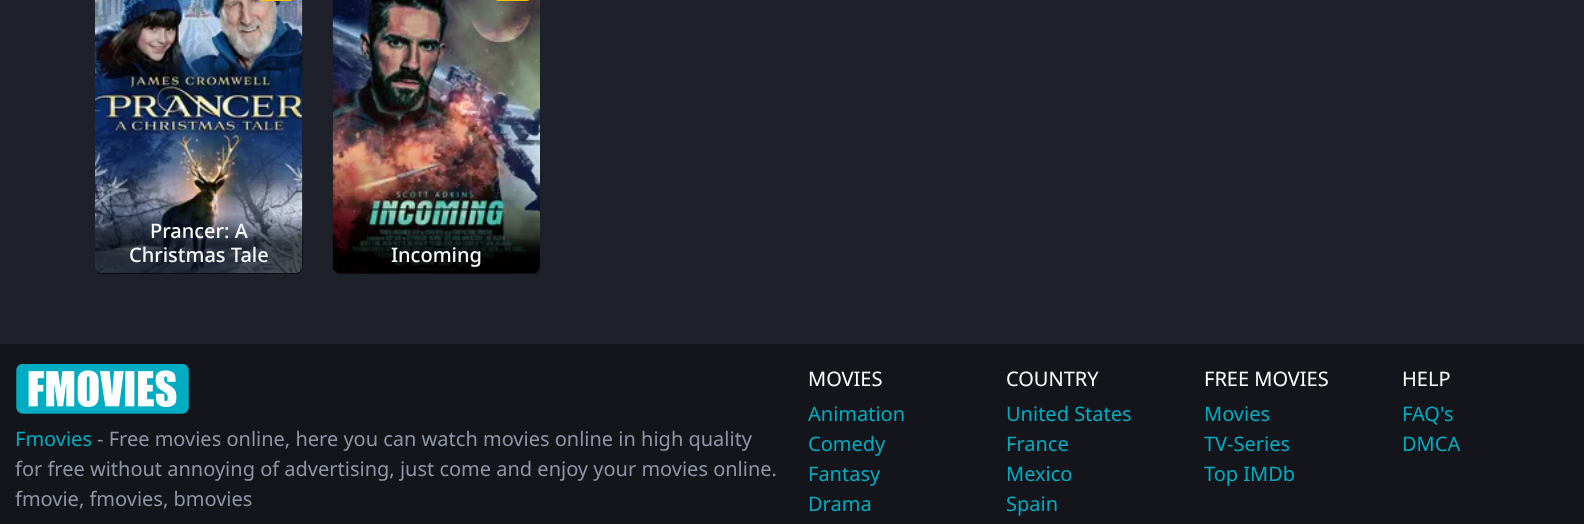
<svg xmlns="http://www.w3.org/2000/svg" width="1584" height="524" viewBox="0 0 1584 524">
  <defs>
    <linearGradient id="g1" gradientUnits="userSpaceOnUse" x1="199" y1="214" x2="199" y2="274"><stop offset="0" stop-color="rgb(0,0,0)" stop-opacity="0"/><stop offset="0.48" stop-color="rgb(0,0,0)" stop-opacity="0.65"/><stop offset="1" stop-color="rgb(0,0,0)" stop-opacity="0.65"/></linearGradient>
    <linearGradient id="g2" gradientUnits="userSpaceOnUse" x1="436" y1="238" x2="436" y2="274"><stop offset="0" stop-color="rgb(0,0,0)" stop-opacity="0"/><stop offset="0.48" stop-color="rgb(0,0,0)" stop-opacity="0.65"/><stop offset="1" stop-color="rgb(0,0,0)" stop-opacity="0.65"/></linearGradient>
  </defs>
  <rect width="100%" height="100%" fill="rgb(30,33,41)"/>
  <image x="95" y="0" width="208" height="273" href="pic1.png"/>
  <rect x="258" y="-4" width="35" height="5" rx="4" fill="rgb(255,193,7)"/>
  <path d="M95 214H303V266C303 270.5 299.5 274 295 274H103C98.5 274 95 270.5 95 266Z" fill="url(#g1)"/>
  <g font-family="Noto Sans" font-size="20" font-weight="500" fill="rgb(248,249,250)">
    <text x="150" y="238">Prancer: A</text>
    <text x="129" y="262">Christmas Tale</text>
  </g>
  <image x="332" y="0" width="208" height="273" href="pic2.png"/>
  <rect x="495" y="-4" width="35" height="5" rx="4" fill="rgb(255,193,7)"/>
  <path d="M333 238H540V266C540 270.5 536.5 274 532 274H341C336.5 274 333 270.5 333 266Z" fill="url(#g2)"/>
  <text x="391" y="262" font-family="Noto Sans" font-size="20" font-weight="500" fill="rgb(248,249,250)">Incoming</text>
  <rect x="0" y="344" width="1584" height="180" fill="rgb(19,21,26)"/>
  <image x="16" y="364" width="173" height="50" href="pic3.png"/>
  <text x="15" y="446" font-family="Noto Sans" font-size="20" fill="rgb(0,172,193)">Fmovies</text>
  <g font-family="Noto Sans" font-size="20" fill="rgb(142,149,165)">
    <text x="97" y="446">- Free movies online, here you can watch movies online in high quality</text>
    <text>
      <tspan x="15" y="476">for free without annoying of advertising, just come and enjoy your movies online.</tspan>
      <tspan x="15" y="506">fmovie, fmovies, bmovies</tspan>
    </text>
  </g>
  <text x="808" y="386" font-family="Noto Sans" font-size="20" fill="rgb(255,255,255)">MOVIES</text>
  <g font-family="Noto Sans" font-size="20" fill="rgb(0,172,193)">
    <text>
      <tspan x="808" y="421">Animation</tspan>
      <tspan x="808" y="451">Comedy</tspan>
      <tspan x="808" y="481">Fantasy</tspan>
      <tspan x="808" y="511">Drama</tspan>
    </text>
  </g>
  <text x="1006" y="386" font-family="Noto Sans" font-size="20" fill="rgb(255,255,255)">COUNTRY</text>
  <g font-family="Noto Sans" font-size="20" fill="rgb(0,172,193)">
    <text>
      <tspan x="1006" y="421">United States</tspan>
      <tspan x="1006" y="451">France</tspan>
      <tspan x="1006" y="481">Mexico</tspan>
      <tspan x="1006" y="511">Spain</tspan>
    </text>
  </g>
  <text x="1204" y="386" font-family="Noto Sans" font-size="20" fill="rgb(255,255,255)">FREE MOVIES</text>
  <g font-family="Noto Sans" font-size="20" fill="rgb(0,172,193)">
    <text>
      <tspan x="1204" y="421">Movies</tspan>
      <tspan x="1204" y="451">TV-Series</tspan>
      <tspan x="1204" y="481">Top IMDb</tspan>
    </text>
  </g>
  <text x="1402" y="386" font-family="Noto Sans" font-size="20" fill="rgb(255,255,255)">HELP</text>
  <g font-family="Noto Sans" font-size="20" fill="rgb(0,172,193)">
    <text>
      <tspan x="1402" y="421">FAQ's</tspan>
      <tspan x="1402" y="451">DMCA</tspan>
    </text>
  </g>
</svg>
